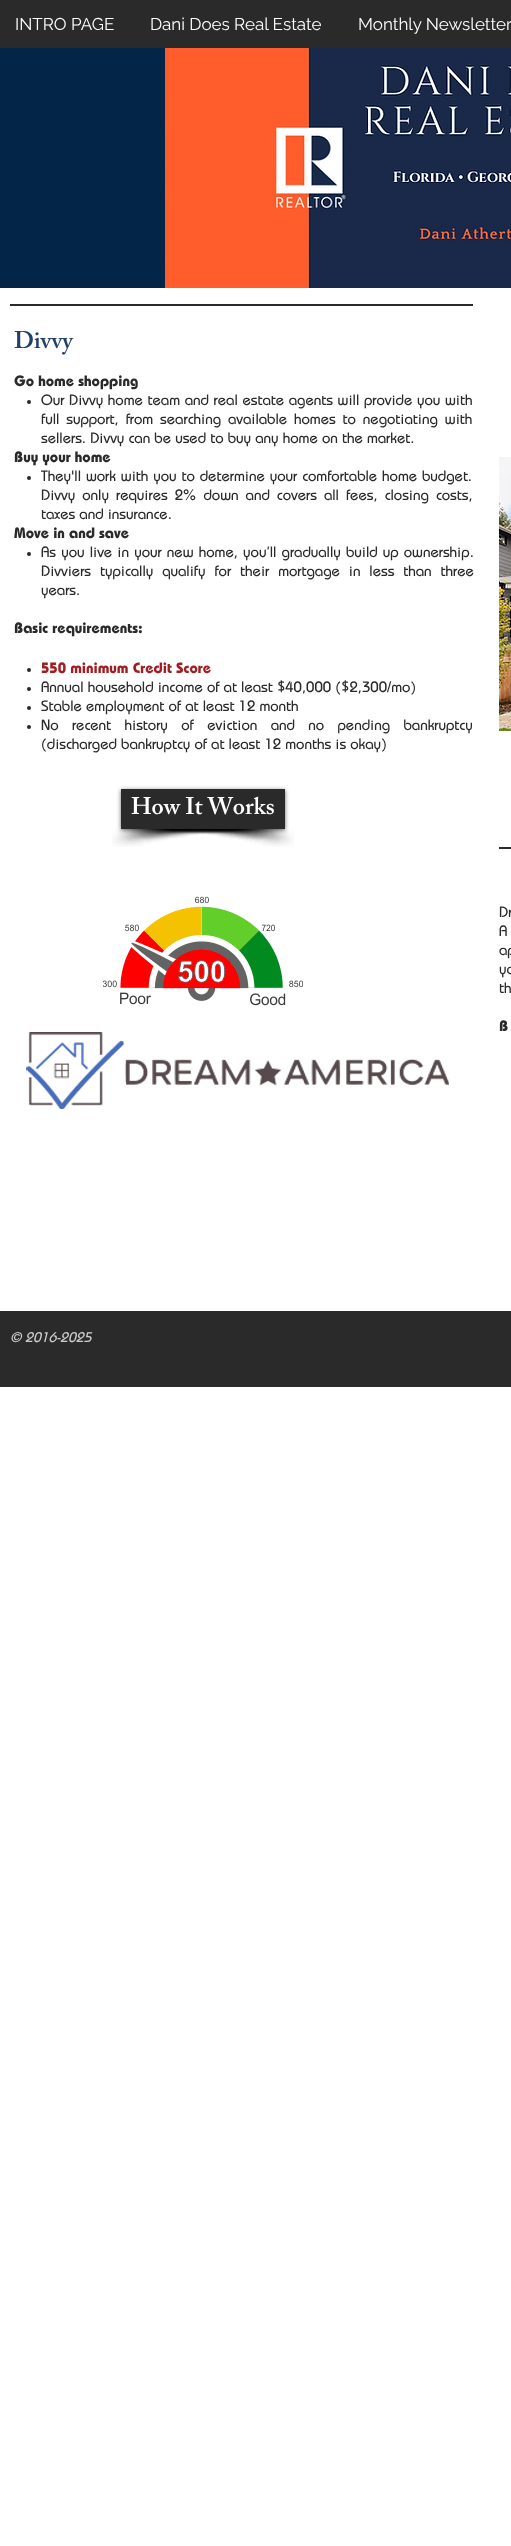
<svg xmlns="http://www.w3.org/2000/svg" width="511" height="2546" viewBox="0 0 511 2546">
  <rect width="100%" height="100%" fill="rgb(255,255,255)"/>
  <rect x="0" y="0" width="511" height="48" fill="rgb(42,42,42)"/>
  <g font-family="Raleway" font-size="17" fill="rgb(255,255,255)">
    <text x="15" y="30">INTRO PAGE</text>
    <text x="150" y="30">Dani Does Real Estate</text>
    <text x="358" y="30">Monthly Newsletter</text>
  </g>
  <image x="165" y="48" width="346" height="240" href="pic1.png"/>
  <rect x="0" y="48" width="165" height="240" fill="rgb(3,37,71)"/>
  <rect x="10" y="304" width="463" height="2" fill="rgb(42,42,42)"/>
  <text x="14" y="348" font-family="'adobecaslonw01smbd'" font-size="24" font-weight="600" fill="rgb(33,64,106)">Divvy</text>
  <text x="14" y="386" font-family="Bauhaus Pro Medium" font-size="15" font-weight="bold" fill="rgb(42,42,42)">Go home shopping</text>
  <circle cx="29" cy="402" r="2" fill="rgb(42,42,42)"/>
  <g font-family="Bauhaus Pro Medium" font-size="15" font-weight="500" fill="rgb(42,42,42)">
    <text>
      <tspan x="41" y="405" word-spacing="0.5">Our Divvy home team and real estate agents will provide you with</tspan>
      <tspan x="41" y="424" word-spacing="2.75">full support, from searching available homes to negotiating with</tspan>
      <tspan x="41" y="443">sellers. Divvy can be used to buy any home on the market.</tspan>
    </text>
  </g>
  <text x="14" y="462" font-family="Bauhaus Pro Medium" font-size="15" font-weight="bold" fill="rgb(42,42,42)">Buy your home</text>
  <circle cx="29" cy="478" r="2" fill="rgb(42,42,42)"/>
  <g font-family="Bauhaus Pro Medium" font-size="15" font-weight="500" fill="rgb(42,42,42)">
    <text>
      <tspan x="41" y="481" word-spacing="0.75">They'll work with you to determine your comfortable home budget.</tspan>
      <tspan x="41" y="500" word-spacing="2.9">Divvy only requires 2% down and covers all fees, closing costs,</tspan>
      <tspan x="41" y="519">taxes and insurance.</tspan>
    </text>
  </g>
  <text x="14" y="538" font-family="Bauhaus Pro Medium" font-size="15" font-weight="bold" fill="rgb(42,42,42)">Move in and save</text>
  <circle cx="29" cy="554" r="2" fill="rgb(42,42,42)"/>
  <g font-family="Bauhaus Pro Medium" font-size="15" font-weight="500" fill="rgb(42,42,42)">
    <text>
      <tspan x="41" y="557" word-spacing="1">As you live in your new home, you’ll gradually build up ownership.</tspan>
      <tspan x="41" y="576" word-spacing="4.75">Divviers typically qualify for their mortgage in less than three</tspan>
      <tspan x="41" y="595">years.</tspan>
    </text>
  </g>
  <text x="14" y="633" font-family="Bauhaus Pro Medium" font-size="15" font-weight="bold" fill="rgb(42,42,42)">Basic requirements:</text>
  <circle cx="29" cy="670" r="2" fill="rgb(42,42,42)"/>
  <text x="41" y="673" font-family="Bauhaus Pro Medium" font-size="15" font-weight="bold" fill="rgb(160,31,36)">550 minimum Credit Score</text>
  <circle cx="29" cy="689" r="2" fill="rgb(42,42,42)"/>
  <text x="41" y="692" font-family="Bauhaus Pro Medium" font-size="15" font-weight="500" fill="rgb(42,42,42)">Annual household income of at least $40,000 ($2,300/mo)</text>
  <circle cx="29" cy="708" r="2" fill="rgb(42,42,42)"/>
  <text x="41" y="711" font-family="Bauhaus Pro Medium" font-size="15" font-weight="500" fill="rgb(42,42,42)">Stable employment of at least 12 month</text>
  <circle cx="29" cy="727" r="2" fill="rgb(42,42,42)"/>
  <g font-family="Bauhaus Pro Medium" font-size="15" font-weight="500" fill="rgb(42,42,42)">
    <text>
      <tspan x="41" y="730" word-spacing="9.25">No recent history of eviction and no pending bankruptcy</tspan>
      <tspan x="41" y="749">(discharged bankruptcy of at least 12 months is okay)</tspan>
    </text>
  </g>
  <image x="499" y="457" width="12" height="274" href="pic2.png"/>
  <image x="112" y="829" width="154" height="18" href="pic3.png"/>
  <image x="170" y="829" width="124" height="18" href="pic4.png"/>
  <rect x="121" y="790" width="164" height="40" fill="rgba(0,0,0,0.6)" filter="blur(2px)"/>
  <rect x="121" y="789" width="164" height="40" fill="rgb(42,42,42)"/>
  <text x="131" y="814" font-family="'adobecaslonw01smbd'" font-size="24" font-weight="600" fill="rgb(255,255,255)">How It Works</text>
  <rect x="499" y="847" width="12" height="2" fill="rgb(42,42,42)"/>
  <image x="103" y="896" width="200" height="110" href="pic5.png"/>
  <g font-family="Bauhaus Pro Medium" font-size="15" font-weight="500" fill="rgb(42,42,42)">
    <text>
      <tspan x="499" y="917" word-spacing="4">Dr</tspan>
      <tspan x="499" y="936" word-spacing="3">A</tspan>
      <tspan x="499" y="955">ap</tspan>
      <tspan x="499" y="974" word-spacing="2">yo</tspan>
      <tspan x="499" y="993">th</tspan>
    </text>
  </g>
  <text x="499" y="1031" font-family="Bauhaus Pro Medium" font-size="15" font-weight="bold" fill="rgb(42,42,42)">B</text>
  <image x="26" y="1032" width="423" height="77" href="pic6.png"/>
  <rect x="0" y="1311" width="511" height="76" fill="rgb(42,42,42)"/>
  <text x="10" y="1342" font-family="Bauhaus Pro Medium" font-size="14" font-weight="500" font-style="italic" fill="rgb(204,204,204)">© 2016-2025</text>
</svg>
